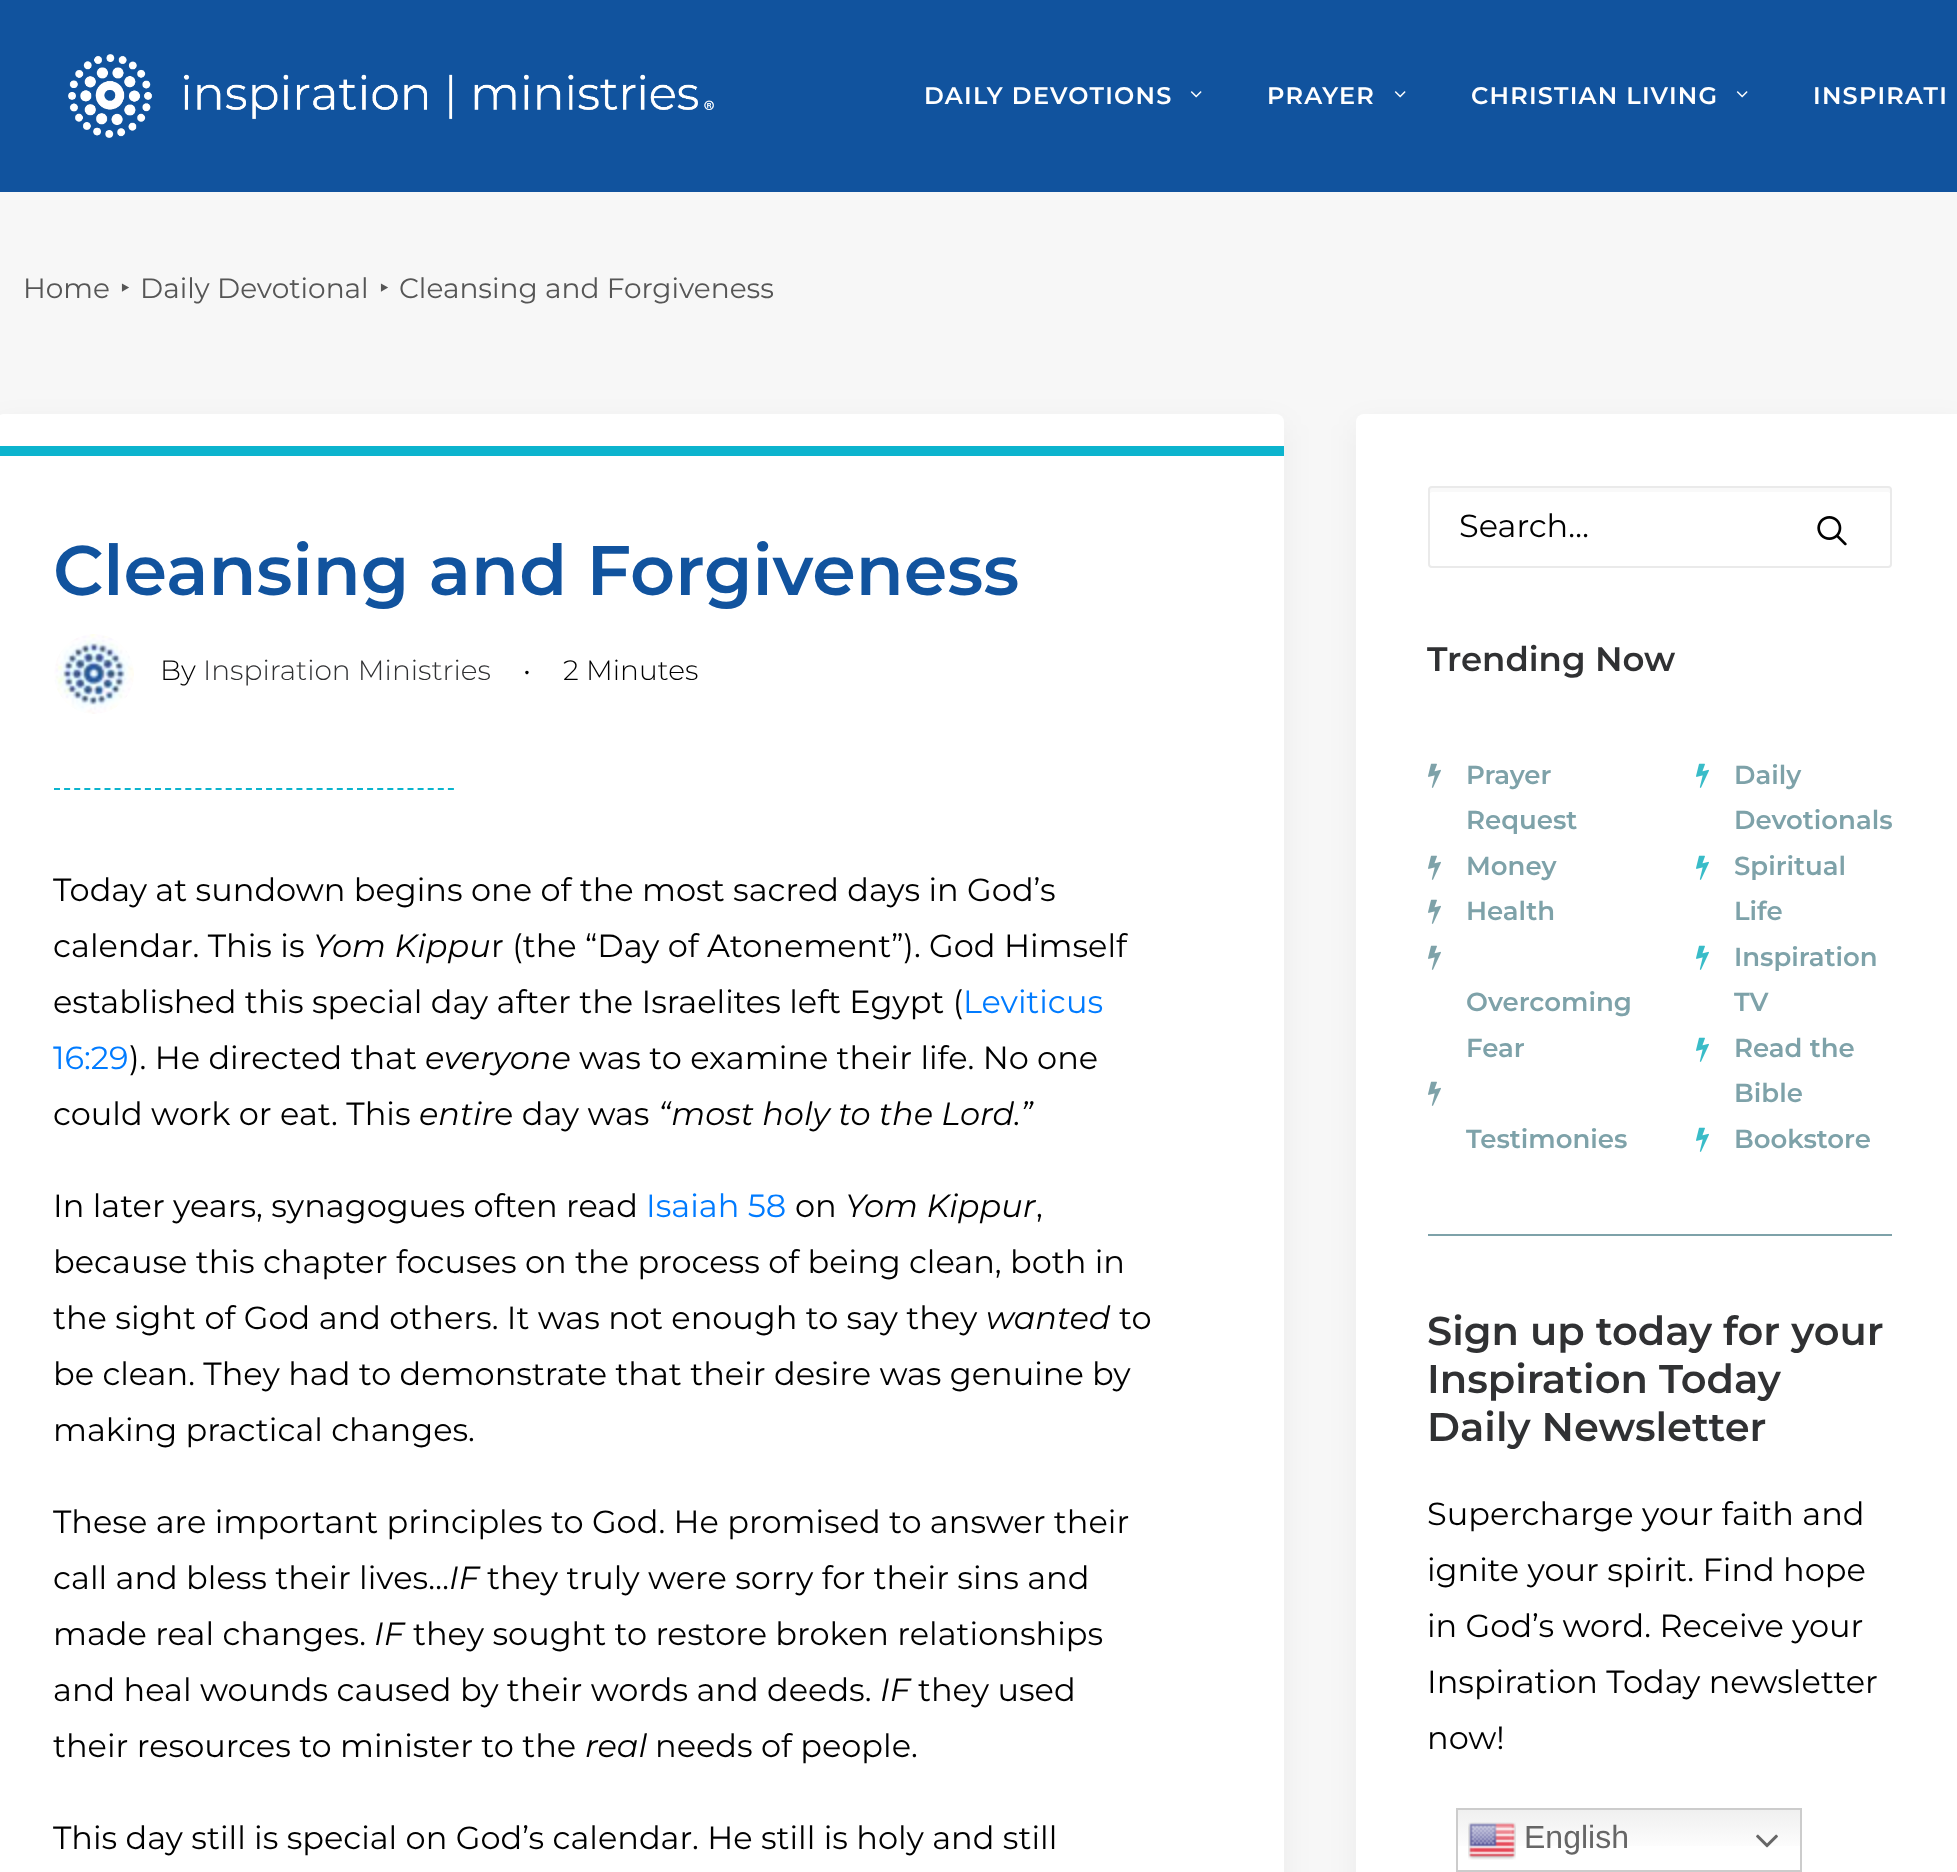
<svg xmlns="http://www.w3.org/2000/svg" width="1957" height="1872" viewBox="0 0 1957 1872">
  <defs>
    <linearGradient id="g1" gradientUnits="userSpaceOnUse" x1="1629" y1="1808" x2="1629" y2="1872"><stop offset="0" stop-color="rgb(239,239,239)"/><stop offset="0.7" stop-color="rgb(255,255,255)"/></linearGradient>
  </defs>
  <rect width="100%" height="100%" fill="rgb(247,247,247)"/>
  <rect x="0" y="0" width="1957" height="192" fill="rgb(17,83,158)"/>
  <image x="68" y="54" width="646" height="84" href="pic1.png"/>
  <text x="924" y="104" font-family="Montserrat" font-size="24" font-weight="600" letter-spacing="1.25" fill="rgb(255,255,255)">DAILY DEVOTIONS</text>
  <image x="1190" y="91" width="12" height="7" href="pic2.png"/>
  <text x="1267" y="104" font-family="Montserrat" font-size="24" font-weight="600" letter-spacing="1.25" fill="rgb(255,255,255)">PRAYER</text>
  <image x="1394" y="91" width="12" height="7" href="pic2.png"/>
  <text x="1471" y="104" font-family="Montserrat" font-size="24" font-weight="600" letter-spacing="1.25" fill="rgb(255,255,255)">CHRISTIAN LIVING</text>
  <image x="1736" y="91" width="12" height="7" href="pic2.png"/>
  <text x="1813" y="104" font-family="Montserrat" font-size="24" font-weight="600" letter-spacing="1.25" fill="rgb(255,255,255)">INSPIRATI</text>
  <text x="23" y="298" font-family="Montserrat" font-size="28" fill="rgb(86,86,86)">Home</text>
  <text x="120" y="298" font-family="Noto Sans" font-size="28" fill="rgb(86,86,86)">‣</text>
  <text x="140" y="298" font-family="Montserrat" font-size="28" fill="rgb(86,86,86)">Daily Devotional</text>
  <text x="379" y="298" font-family="Noto Sans" font-size="28" fill="rgb(86,86,86)">‣</text>
  <text x="399" y="298" font-family="Montserrat" font-size="28" fill="rgb(86,86,86)">Cleansing and Forgiveness</text>
  <rect x="-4" y="424" width="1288" height="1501" rx="8" fill="rgba(0,0,0,0.05)" filter="blur(15px)"/>
  <rect x="-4" y="414" width="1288" height="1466" rx="8" fill="rgb(255,255,255)"/>
  <rect x="0" y="446" width="1284" height="10" fill="rgb(12,180,206)"/>
  <text x="53" y="595" font-family="Montserrat" font-size="70" font-weight="600" fill="rgb(17,83,158)">Cleansing and Forgiveness</text>
  <image x="54" y="634" width="80" height="80" href="pic3.png"/>
  <text x="160" y="680" font-family="Montserrat" font-size="28" font-weight="300" fill="rgb(0,0,0)">By</text>
  <text x="203" y="680" font-family="Montserrat" font-size="28" font-weight="300" fill="rgb(48,49,51)">Inspiration Ministries</text>
  <g font-family="Montserrat" font-size="28" font-weight="300" fill="rgb(0,0,0)">
    <text x="523" y="680">•</text>
    <text x="563" y="680">2 Minutes</text>
  </g>
  <path d="M54 789H454" fill="none" stroke="rgb(12,180,206)" stroke-width="2" stroke-dasharray="6 4.1"/>
  <g font-family="Montserrat" font-size="32" fill="rgb(0,0,0)">
    <text>
      <tspan x="53" y="901">Today at sundown begins one of the most sacred days in God’s</tspan>
      <tspan x="53" y="957">calendar. This is</tspan>
    </text>
  </g>
  <text x="313" y="957" font-family="Montserrat" font-size="32" font-style="italic" fill="rgb(0,0,0)">Yom Kippu</text>
  <g font-family="Montserrat" font-size="32" fill="rgb(0,0,0)">
    <text x="491" y="957">r (the “Day of Atonement”). God Himself</text>
    <text x="53" y="1013">established this special day after the Israelites left Egypt (</text>
  </g>
  <g font-family="Montserrat" font-size="32" fill="rgb(0,123,255)">
    <text x="963" y="1013">Leviticus</text>
    <text x="53" y="1069">16:29</text>
  </g>
  <text x="129" y="1069" font-family="Montserrat" font-size="32" fill="rgb(0,0,0)">). He directed that</text>
  <text x="425" y="1069" font-family="Montserrat" font-size="32" font-style="italic" fill="rgb(0,0,0)">everyone</text>
  <g font-family="Montserrat" font-size="32" fill="rgb(0,0,0)">
    <text x="579" y="1069">was to examine their life. No one</text>
    <text x="53" y="1125">could work or eat. This</text>
  </g>
  <text x="419" y="1125" font-family="Montserrat" font-size="32" font-style="italic" fill="rgb(0,0,0)">entir</text>
  <text x="494" y="1125" font-family="Montserrat" font-size="32" fill="rgb(0,0,0)">e day was</text>
  <text x="658" y="1125" font-family="Montserrat" font-size="32" font-style="italic" fill="rgb(0,0,0)">“most holy to the Lord.”</text>
  <text x="53" y="1217" font-family="Montserrat" font-size="32" fill="rgb(0,0,0)">In later years, synagogues often read</text>
  <text x="646" y="1217" font-family="Montserrat" font-size="32" fill="rgb(0,123,255)">Isaiah 58</text>
  <text x="795" y="1217" font-family="Montserrat" font-size="32" fill="rgb(0,0,0)">on</text>
  <text x="845" y="1217" font-family="Montserrat" font-size="32" font-style="italic" fill="rgb(0,0,0)">Yom Kippur</text>
  <g font-family="Montserrat" font-size="32" fill="rgb(0,0,0)">
    <text x="1036" y="1217">,</text>
    <text>
      <tspan x="53" y="1273">because this chapter focuses on the process of being clean, both in</tspan>
      <tspan x="53" y="1329">the sight of God and others. It was not enough to say they</tspan>
    </text>
  </g>
  <text x="986" y="1329" font-family="Montserrat" font-size="32" font-style="italic" fill="rgb(0,0,0)">wanted</text>
  <g font-family="Montserrat" font-size="32" fill="rgb(0,0,0)">
    <text x="1119" y="1329">to</text>
    <text>
      <tspan x="53" y="1385">be clean. They had to demonstrate that their desire was genuine by</tspan>
      <tspan x="53" y="1441">making practical changes.</tspan>
    </text>
    <text>
      <tspan x="53" y="1533">These are important principles to God. He promised to answer their</tspan>
      <tspan x="53" y="1589">call and bless their lives…</tspan>
    </text>
  </g>
  <text x="449" y="1589" font-family="Montserrat" font-size="32" font-style="italic" fill="rgb(0,0,0)">IF</text>
  <g font-family="Montserrat" font-size="32" fill="rgb(0,0,0)">
    <text x="487" y="1589">they truly were sorry for their sins and</text>
    <text x="53" y="1645">made real changes.</text>
  </g>
  <text x="374" y="1645" font-family="Montserrat" font-size="32" font-style="italic" fill="rgb(0,0,0)">IF</text>
  <g font-family="Montserrat" font-size="32" fill="rgb(0,0,0)">
    <text x="413" y="1645">they sought to restore broken relationships</text>
    <text x="53" y="1701">and heal wounds caused by their words and deeds.</text>
  </g>
  <text x="880" y="1701" font-family="Montserrat" font-size="32" font-style="italic" fill="rgb(0,0,0)">IF</text>
  <g font-family="Montserrat" font-size="32" fill="rgb(0,0,0)">
    <text x="918" y="1701">they used</text>
    <text x="53" y="1757">their resources to minister to the</text>
  </g>
  <text x="585" y="1757" font-family="Montserrat" font-size="32" font-style="italic" fill="rgb(0,0,0)">real</text>
  <g font-family="Montserrat" font-size="32" fill="rgb(0,0,0)">
    <text x="655" y="1757">needs of people.</text>
    <text x="53" y="1849">This day still is special on God’s calendar. He still is holy and still</text>
  </g>
  <rect x="1356" y="424" width="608" height="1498" rx="8" fill="rgba(0,0,0,0.05)" filter="blur(15px)"/>
  <rect x="1356" y="414" width="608" height="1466" rx="8" fill="rgb(255,255,255)"/>
  <path d="M1432 492H1888C1889 492 1890 493 1890 494V490C1890 489 1889 488 1888 488H1432C1431 488 1430 489 1430 490V494C1430 493 1431 492 1432 492Z" fill="rgb(249,249,249)"/>
  <rect x="1429" y="487" width="462" height="80" rx="3" fill="none" stroke="rgb(234,234,234)" stroke-width="2"/>
  <text x="1459" y="537" font-family="Montserrat" font-size="32" fill="rgb(0,0,0)">Search…</text>
  <image x="1817" y="516" width="30" height="30" href="pic4.png"/>
  <text x="1427" y="671" font-family="Montserrat" font-size="34" font-weight="600" fill="rgb(48,49,51)">Trending Now</text>
  <image x="1428" y="763" width="13" height="25" href="pic5.png"/>
  <g font-family="Montserrat" font-size="26" font-weight="600" fill="rgb(126,162,169)">
    <text>
      <tspan x="1466" y="784">Prayer</tspan>
      <tspan x="1466" y="829">Request</tspan>
    </text>
  </g>
  <image x="1428" y="855" width="13" height="25" href="pic5.png"/>
  <text x="1466" y="875" font-family="Montserrat" font-size="26" font-weight="600" fill="rgb(126,162,169)">Money</text>
  <image x="1428" y="899" width="13" height="25" href="pic5.png"/>
  <text x="1466" y="920" font-family="Montserrat" font-size="26" font-weight="600" fill="rgb(126,162,169)">Health</text>
  <image x="1428" y="945" width="13" height="25" href="pic5.png"/>
  <g font-family="Montserrat" font-size="26" font-weight="600" fill="rgb(126,162,169)">
    <text>
      <tspan x="1466" y="1011">Overcoming</tspan>
      <tspan x="1466" y="1057">Fear</tspan>
    </text>
  </g>
  <image x="1428" y="1081" width="13" height="25" href="pic5.png"/>
  <text x="1466" y="1148" font-family="Montserrat" font-size="26" font-weight="600" fill="rgb(126,162,169)">Testimonies</text>
  <image x="1696" y="763" width="13" height="25" href="pic6.png"/>
  <g font-family="Montserrat" font-size="26" font-weight="600" fill="rgb(126,162,169)">
    <text>
      <tspan x="1734" y="784">Daily</tspan>
      <tspan x="1734" y="829">Devotionals</tspan>
    </text>
  </g>
  <image x="1696" y="855" width="13" height="25" href="pic6.png"/>
  <g font-family="Montserrat" font-size="26" font-weight="600" fill="rgb(126,162,169)">
    <text>
      <tspan x="1734" y="875">Spiritual</tspan>
      <tspan x="1734" y="920">Life</tspan>
    </text>
  </g>
  <image x="1696" y="945" width="13" height="25" href="pic6.png"/>
  <g font-family="Montserrat" font-size="26" font-weight="600" fill="rgb(126,162,169)">
    <text>
      <tspan x="1734" y="966">Inspiration</tspan>
      <tspan x="1734" y="1011">TV</tspan>
    </text>
  </g>
  <image x="1696" y="1037" width="13" height="25" href="pic6.png"/>
  <g font-family="Montserrat" font-size="26" font-weight="600" fill="rgb(126,162,169)">
    <text>
      <tspan x="1734" y="1057">Read the</tspan>
      <tspan x="1734" y="1102">Bible</tspan>
    </text>
  </g>
  <image x="1696" y="1127" width="13" height="25" href="pic6.png"/>
  <text x="1734" y="1148" font-family="Montserrat" font-size="26" font-weight="600" fill="rgb(126,162,169)">Bookstore</text>
  <rect x="1428" y="1234" width="464" height="2" fill="rgb(126,162,169)"/>
  <g font-family="Montserrat" font-size="40" font-weight="600" fill="rgb(48,49,51)">
    <text>
      <tspan x="1427" y="1345">Sign up today for your</tspan>
      <tspan x="1427" y="1393">Inspiration Today</tspan>
      <tspan x="1427" y="1441">Daily Newsletter</tspan>
    </text>
  </g>
  <g font-family="Montserrat" font-size="32" fill="rgb(0,0,0)">
    <text>
      <tspan x="1427" y="1525">Supercharge your faith and</tspan>
      <tspan x="1427" y="1581">ignite your spirit. Find hope</tspan>
      <tspan x="1427" y="1637">in God’s word. Receive your</tspan>
      <tspan x="1427" y="1693">Inspiration Today newsletter</tspan>
      <tspan x="1427" y="1749">now!</tspan>
    </text>
  </g>
  <rect x="1458" y="1810" width="342" height="36" fill="url(#g1)"/>
  <rect x="1457" y="1809" width="344" height="62" fill="none" stroke="rgb(204,204,204)" stroke-width="2"/>
  <image x="1468" y="1822" width="48" height="38" href="pic7.png"/>
  <text x="1524" y="1848" font-family="Liberation Sans" font-size="32" fill="rgb(102,102,102)">English</text>
  <image x="1756" y="1834" width="22" height="14" href="pic8.png"/>
</svg>
